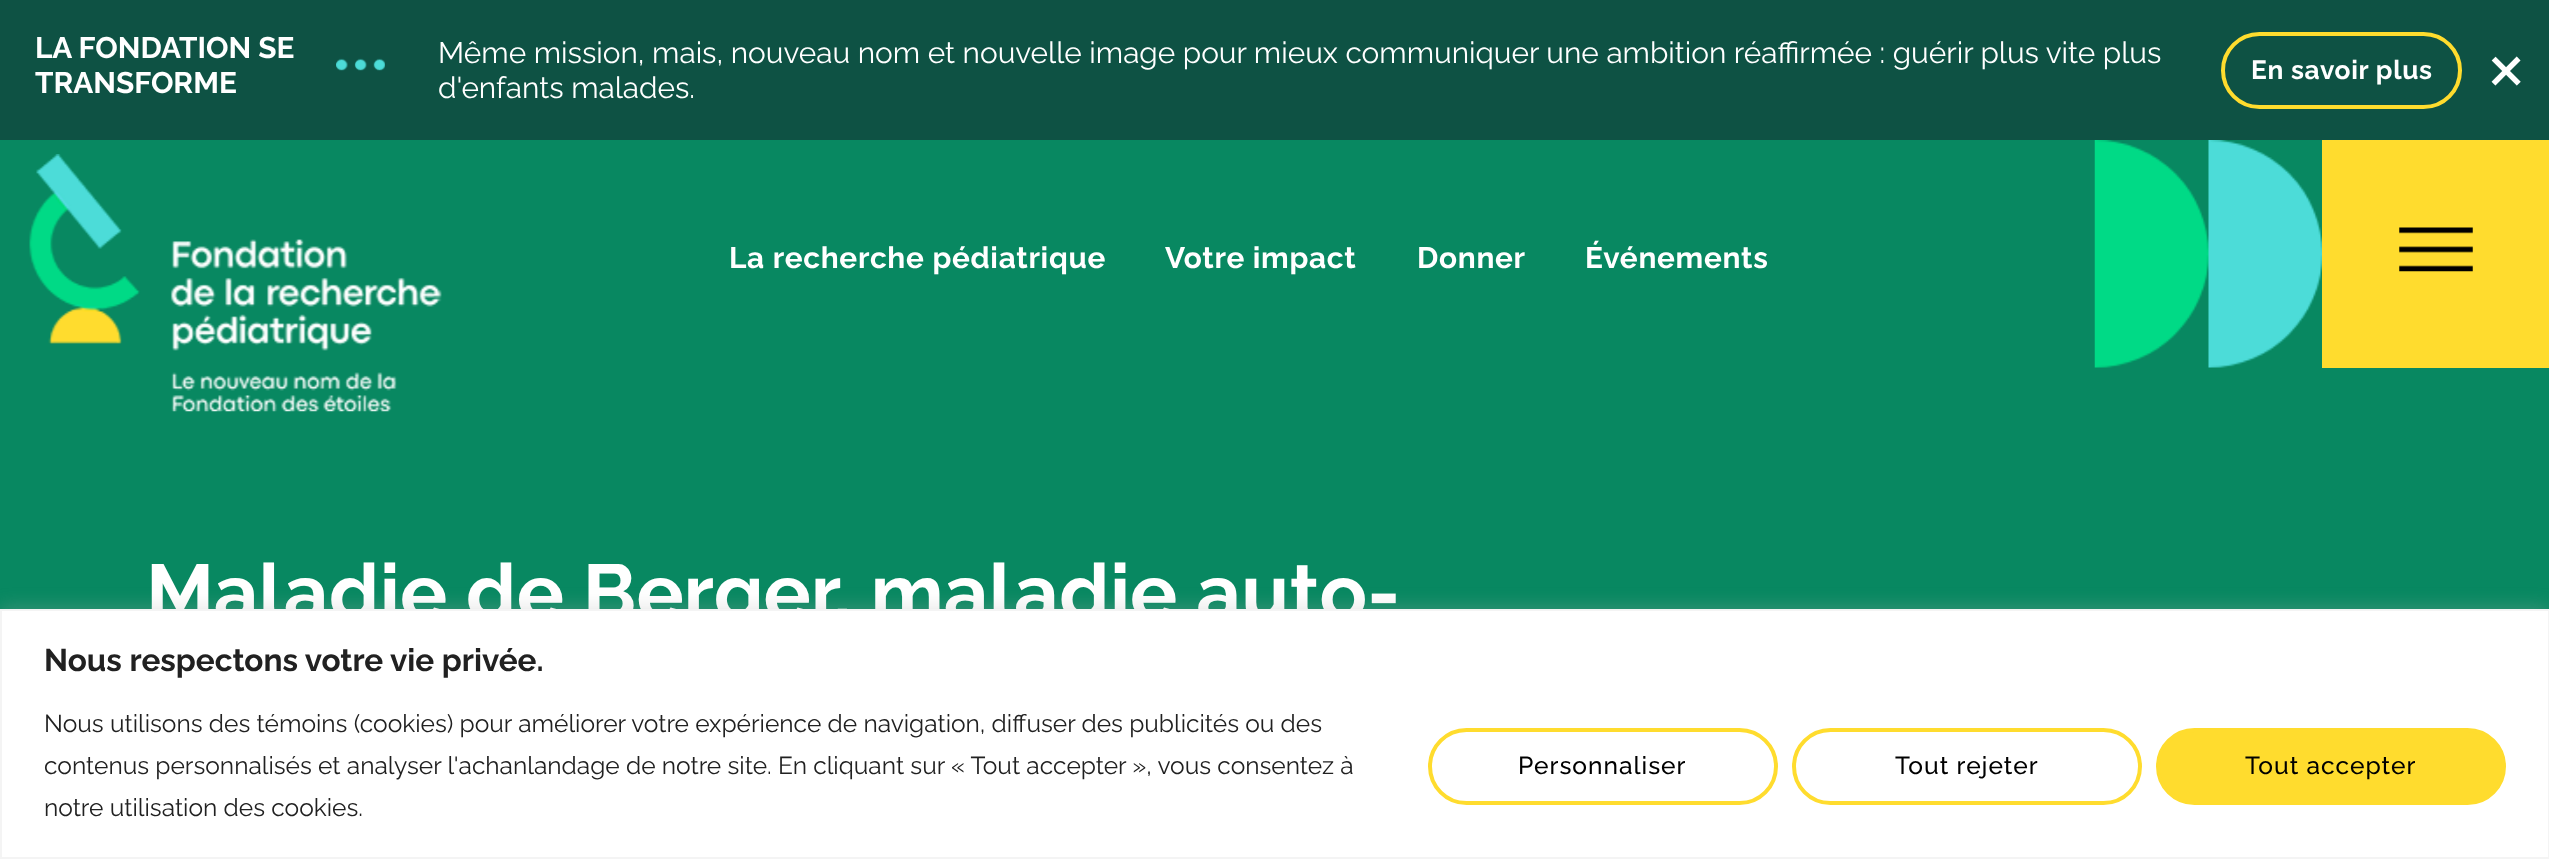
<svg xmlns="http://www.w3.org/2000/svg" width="2549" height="859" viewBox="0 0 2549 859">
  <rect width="100%" height="100%" fill="rgb(8,136,97)"/>
  <rect x="0" y="0" width="2549" height="140" fill="rgb(14,82,68)"/>
  <text x="35" y="58" font-family="Raleway" font-size="29.75" font-weight="bold" fill="rgb(255,255,255)">LA FONDATION SE</text>
  <image x="336" y="58" width="49" height="13" href="pic1.png"/>
  <text x="35" y="93" font-family="Raleway" font-size="29.75" font-weight="bold" fill="rgb(255,255,255)">TRANSFORME</text>
  <g font-family="Raleway" font-size="29.75" fill="rgb(255,255,255)">
    <text>
      <tspan x="438" y="63">Même mission, mais, nouveau nom et nouvelle image pour mieux communiquer une ambition réaffirmée : guérir plus vite plus</tspan>
      <tspan x="438" y="98">d'enfants malades.</tspan>
    </text>
  </g>
  <rect x="2223" y="34" width="237" height="73" rx="36.5" fill="none" stroke="rgb(255,220,46)" stroke-width="4"/>
  <text x="2251" y="79" font-family="Raleway" font-size="26.25" font-weight="bold" letter-spacing="0.7" fill="rgb(255,255,255)">En savoir plus</text>
  <text x="2486" y="95" font-family="Raleway" font-size="88" fill="rgb(255,255,255)">×</text>
  <image x="29" y="154" width="413" height="258" href="pic2.png"/>
  <g font-family="Raleway" font-size="29.75" font-weight="bold" letter-spacing="0.7" fill="rgb(255,255,255)">
    <text x="729" y="268">La recherche pédiatrique</text>
    <text x="1165" y="268">Votre impact</text>
    <text x="1417" y="268">Donner</text>
    <text x="1585" y="268">Événements</text>
  </g>
  <image x="2094" y="140" width="228" height="228" href="pic3.png"/>
  <rect x="2322" y="140" width="227" height="228" fill="rgb(255,220,46)"/>
  <image x="2399" y="227" width="74" height="45" href="pic4.png"/>
  <text x="146" y="620" font-family="Raleway" font-size="78.75" font-weight="bold" fill="rgb(255,255,255)">Maladie de Berger, maladie auto-</text>
  <rect x="0" y="607" width="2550" height="251" fill="rgba(172,171,171,0.3)" filter="blur(9px)"/>
  <rect x="1" y="610" width="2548" height="248" fill="rgb(255,255,255)" stroke="rgb(244,244,244)" stroke-width="2"/>
  <text x="44" y="671" font-family="Raleway" font-size="31.5" font-weight="bold" fill="rgb(33,33,33)">Nous respectons votre vie privée.</text>
  <g font-family="Raleway" font-size="24.5" fill="rgb(33,33,33)">
    <text>
      <tspan x="44" y="732">Nous utilisons des témoins (cookies) pour améliorer votre expérience de navigation, diffuser des publicités ou des</tspan>
      <tspan x="44" y="774">contenus personnalisés et analyser l'achanlandage de notre site. En cliquant sur « Tout accepter », vous consentez à</tspan>
      <tspan x="44" y="816">notre utilisation des cookies.</tspan>
    </text>
  </g>
  <rect x="1430" y="730" width="346" height="73" rx="36.5" fill="none" stroke="rgb(255,220,46)" stroke-width="4"/>
  <text x="1518" y="774" font-family="Raleway" font-size="24.5" font-weight="500" letter-spacing="1" fill="rgb(0,0,0)">Personnaliser</text>
  <rect x="1794" y="730" width="346" height="73" rx="36.5" fill="none" stroke="rgb(255,220,46)" stroke-width="4"/>
  <text x="1895" y="774" font-family="Raleway" font-size="24.5" font-weight="500" letter-spacing="1" fill="rgb(0,0,0)">Tout rejeter</text>
  <rect x="2158" y="730" width="346" height="73" rx="36.5" fill="rgb(255,220,46)" stroke="rgb(255,220,46)" stroke-width="4"/>
  <text x="2245" y="774" font-family="Raleway" font-size="24.5" font-weight="500" letter-spacing="1" fill="rgb(0,0,0)">Tout accepter</text>
</svg>
